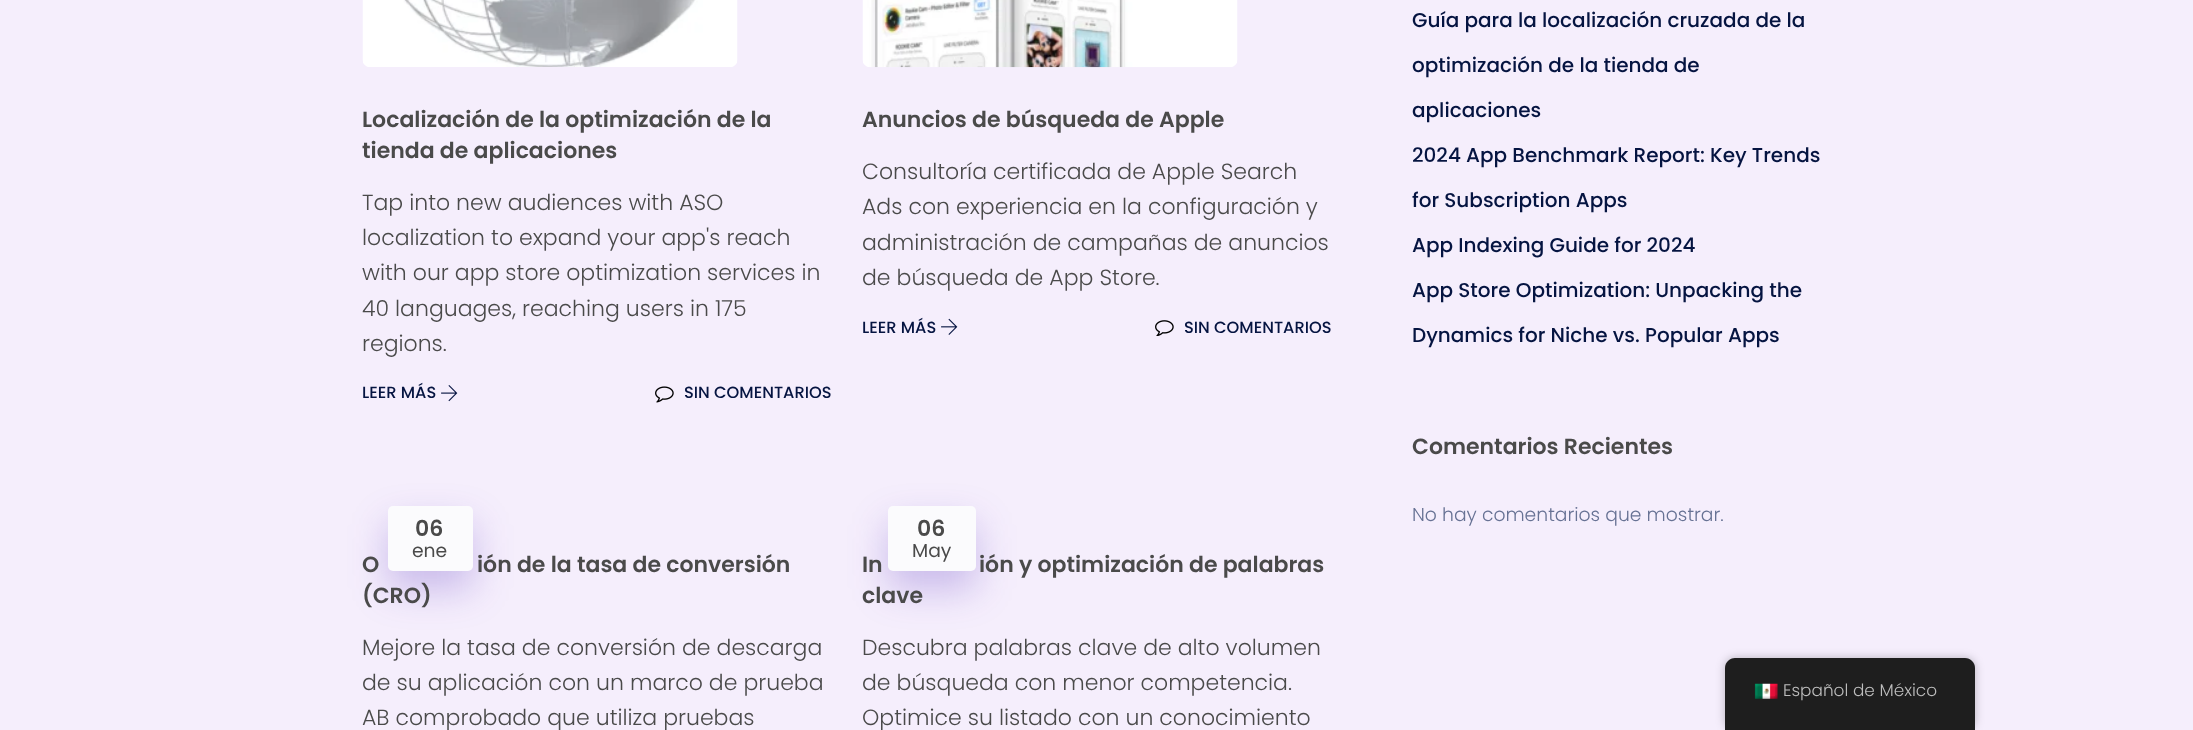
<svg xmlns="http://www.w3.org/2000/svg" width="2193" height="730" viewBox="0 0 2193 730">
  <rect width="100%" height="100%" fill="rgb(245,238,252)"/>
  <image x="362" y="0" width="376" height="67" href="pic1.png"/>
  <g font-family="Poppins" font-size="22" font-weight="600" fill="rgb(74,74,74)">
    <text>
      <tspan x="362" y="127">Localización de la optimización de la</tspan>
      <tspan x="362" y="158">tienda de aplicaciones</tspan>
    </text>
  </g>
  <g font-family="Poppins" font-size="22" font-weight="300" fill="rgb(74,74,74)">
    <text>
      <tspan x="362" y="210">Tap into new audiences with ASO</tspan>
      <tspan x="362" y="245">localization to expand your app's reach</tspan>
      <tspan x="362" y="280">with our app store optimization services in</tspan>
      <tspan x="362" y="316">40 languages, reaching users in 175</tspan>
      <tspan x="362" y="351">regions.</tspan>
    </text>
  </g>
  <text x="362" y="398" font-family="Poppins" font-size="16.25" font-weight="500" fill="rgb(5,20,65)">LEER MÁS</text>
  <image x="441" y="385" width="17" height="17" href="pic2.png"/>
  <image x="655" y="386" width="19" height="17" href="pic3.png"/>
  <text x="684" y="398" font-family="Poppins" font-size="16.25" font-weight="500" fill="rgb(5,20,65)">SIN COMENTARIOS</text>
  <image x="862" y="0" width="376" height="68" href="pic4.png"/>
  <text x="862" y="127" font-family="Poppins" font-size="22" font-weight="600" fill="rgb(74,74,74)">Anuncios de búsqueda de Apple</text>
  <g font-family="Poppins" font-size="22" font-weight="300" fill="rgb(74,74,74)">
    <text>
      <tspan x="862" y="179">Consultoría certificada de Apple Search</tspan>
      <tspan x="862" y="214">Ads con experiencia en la configuración y</tspan>
      <tspan x="862" y="250">administración de campañas de anuncios</tspan>
      <tspan x="862" y="285">de búsqueda de App Store.</tspan>
    </text>
  </g>
  <text x="862" y="333" font-family="Poppins" font-size="16.25" font-weight="500" fill="rgb(5,20,65)">LEER MÁS</text>
  <image x="941" y="318" width="17" height="17" href="pic5.png"/>
  <image x="1155" y="320" width="19" height="16" href="pic6.png"/>
  <text x="1184" y="333" font-family="Poppins" font-size="16.25" font-weight="500" fill="rgb(5,20,65)">SIN COMENTARIOS</text>
  <rect x="388" y="524" width="85" height="65" rx="5" fill="rgba(68,28,183,0.25)" filter="blur(19px)"/>
  <rect x="388" y="506" width="85" height="65" rx="5" fill="rgb(251,251,253)"/>
  <text x="415" y="536" font-family="Poppins" font-size="22" font-weight="600" fill="rgb(74,74,74)">06</text>
  <text x="412" y="557" font-family="Poppins" font-size="18.75" fill="rgb(74,74,74)">ene</text>
  <g font-family="Poppins" font-size="22" font-weight="600" fill="rgb(74,74,74)">
    <text x="362" y="572">O</text>
    <text x="477" y="572">ión de la tasa de conversión</text>
    <text x="362" y="603">(CRO)</text>
  </g>
  <g font-family="Poppins" font-size="22" font-weight="300" fill="rgb(74,74,74)">
    <text>
      <tspan x="362" y="655">Mejore la tasa de conversión de descarga</tspan>
      <tspan x="362" y="690">de su aplicación con un marco de prueba</tspan>
      <tspan x="362" y="725">AB comprobado que utiliza pruebas</tspan>
    </text>
  </g>
  <rect x="888" y="524" width="88" height="65" rx="5" fill="rgba(68,28,183,0.25)" filter="blur(19px)"/>
  <rect x="888" y="506" width="88" height="65" rx="5" fill="rgb(251,251,253)"/>
  <text x="917" y="536" font-family="Poppins" font-size="22" font-weight="600" fill="rgb(74,74,74)">06</text>
  <text x="912" y="557" font-family="Poppins" font-size="18.75" fill="rgb(74,74,74)">May</text>
  <g font-family="Poppins" font-size="22" font-weight="600" fill="rgb(74,74,74)">
    <text x="862" y="572">In</text>
    <text x="979" y="572">ión y optimización de palabras</text>
    <text x="862" y="603">clave</text>
  </g>
  <g font-family="Poppins" font-size="22" font-weight="300" fill="rgb(74,74,74)">
    <text>
      <tspan x="862" y="655">Descubra palabras clave de alto volumen</tspan>
      <tspan x="862" y="690">de búsqueda con menor competencia.</tspan>
      <tspan x="862" y="725">Optimice su listado con un conocimiento</tspan>
    </text>
  </g>
  <g font-family="Poppins" font-size="20" font-weight="500" fill="rgb(5,20,65)">
    <text x="1412" y="27">Guía para la localización cruzada de la</text>
    <text x="1412" y="72">optimización de la tienda de</text>
    <text x="1412" y="117">aplicaciones</text>
    <text x="1412" y="162">2024 App Benchmark Report: Key Trends</text>
    <text x="1412" y="207">for Subscription Apps</text>
    <text x="1412" y="252">App Indexing Guide for 2024</text>
    <text x="1412" y="297">App Store Optimization: Unpacking the</text>
    <text x="1412" y="342">Dynamics for Niche vs. Popular Apps</text>
  </g>
  <text x="1412" y="454" font-family="Poppins" font-size="22" font-weight="600" fill="rgb(74,74,74)">Comentarios Recientes</text>
  <text x="1412" y="521" font-family="Poppins" font-size="18.75" font-weight="300" fill="rgb(103,114,148)">No hay comentarios que mostrar.</text>
  <rect x="1725" y="658" width="250" height="72" rx="10" fill="rgba(0,0,0,0.25)" filter="blur(5px)"/>
  <path d="M1735 658H1965C1970.5 658 1975 662.5 1975 668V730H1725V668C1725 662.5 1729.5 658 1735 658Z" fill="rgb(30,30,30)"/>
  <image x="1754" y="683" width="24" height="16" href="pic7.png"/>
  <text x="1783" y="696" font-family="Poppins" font-size="16.9" font-weight="300" fill="rgb(189,189,189)">Español de México</text>
</svg>
